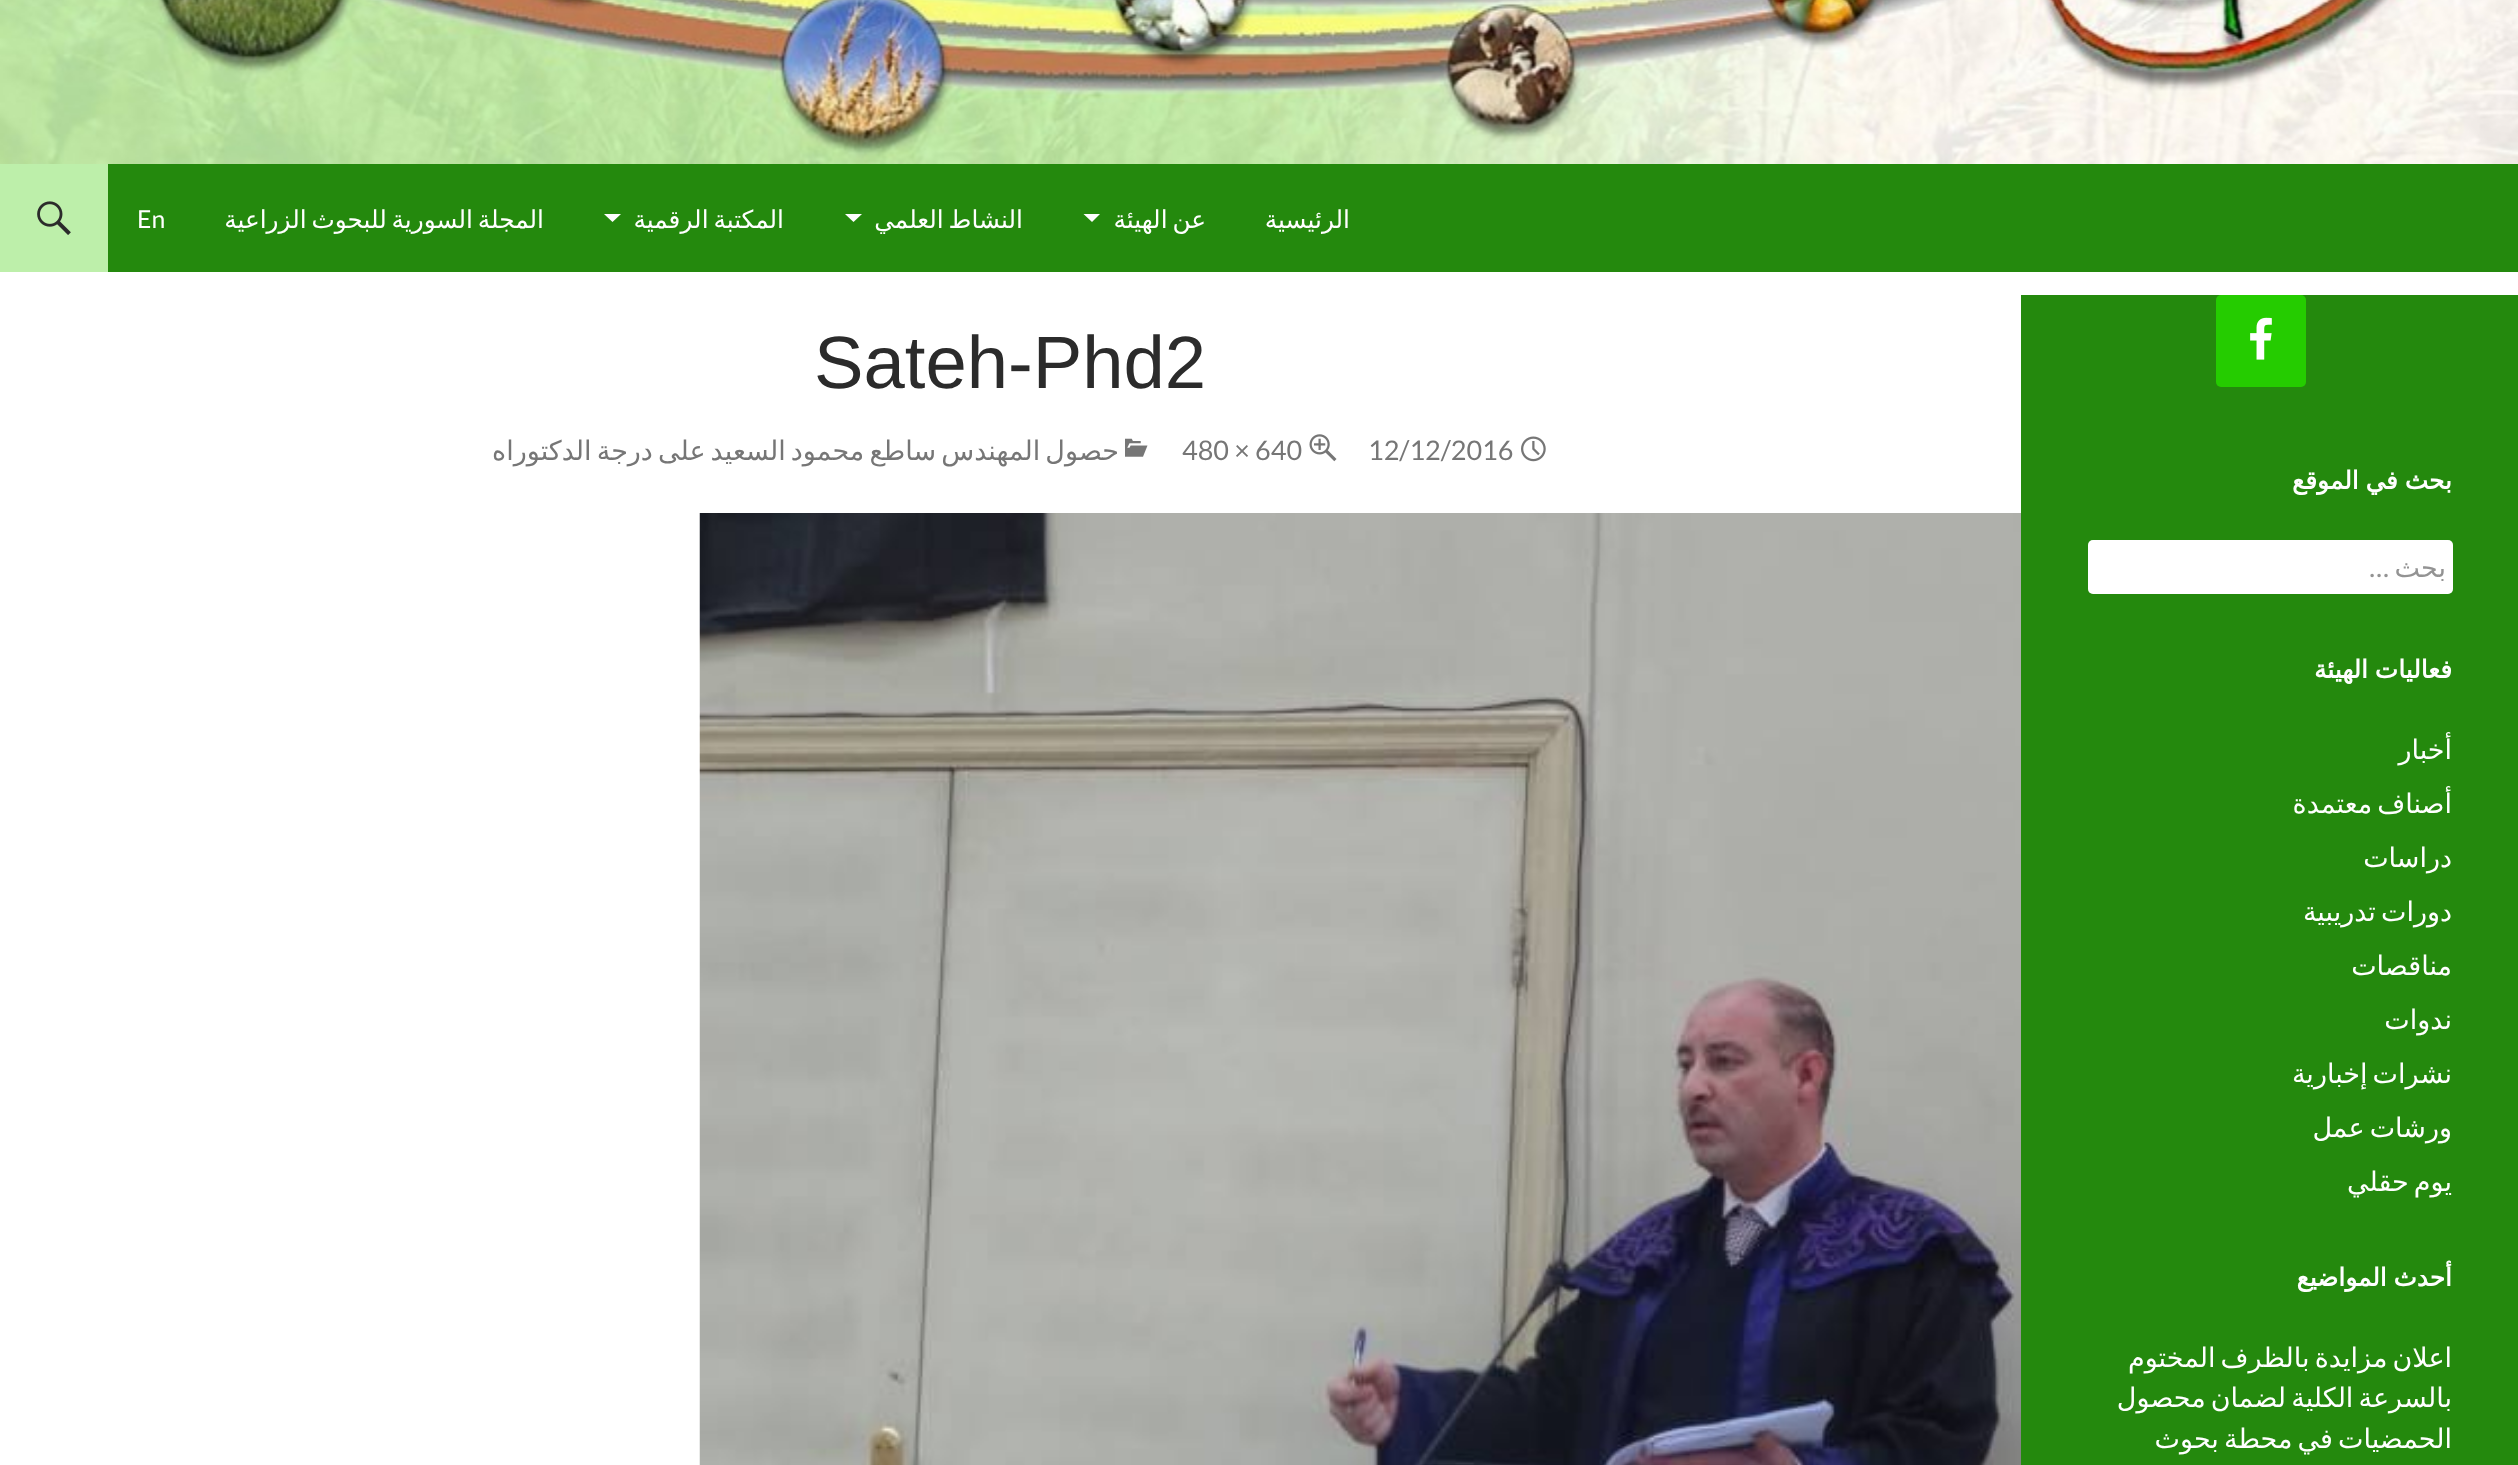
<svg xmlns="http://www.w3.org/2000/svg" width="2518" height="1465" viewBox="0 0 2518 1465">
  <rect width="100%" height="100%" fill="rgb(255,255,255)"/>
  <image x="0" y="0" width="2518" height="164" href="pic1.png"/>
  <rect x="108" y="164" width="2410" height="108" fill="rgb(36,137,13)"/>
  <g font-family="DejaVu Sans" font-size="24.75" direction="rtl" fill="rgb(255,255,255)">
    <text x="1350" y="228">الرئيسية</text>
    <text x="1206" y="228" word-spacing="-3">عن الهيئة</text>
  </g>
  <path d="M1083.5 214L1092 222L1100 214Z" fill="rgb(255,255,255)"/>
  <text x="1023" y="228" word-spacing="-3" font-family="DejaVu Sans" font-size="24.75" direction="rtl" fill="rgb(255,255,255)">النشاط العلمي</text>
  <path d="M845 214L853.5 222L862 214Z" fill="rgb(255,255,255)"/>
  <text x="784" y="228" word-spacing="-3" font-family="DejaVu Sans" font-size="24.75" direction="rtl" fill="rgb(255,255,255)">المكتبة الرقمية</text>
  <path d="M604 214L612.5 222L621 214Z" fill="rgb(255,255,255)"/>
  <text x="544" y="228" word-spacing="-3" font-family="DejaVu Sans" font-size="24.75" direction="rtl" fill="rgb(255,255,255)">المجلة السورية للبحوث الزراعية</text>
  <text x="137" y="228" font-family="Lato" font-size="24.75" fill="rgb(255,255,255)">En</text>
  <rect x="0" y="164" width="108" height="108" fill="rgb(189,239,170)"/>
  <image x="37" y="201" width="34" height="34" href="pic2.png"/>
  <rect x="2021" y="295" width="497" height="1170" fill="rgb(36,137,13)"/>
  <text x="814" y="388" font-family="Liberation Sans" font-size="74.25" fill="rgb(43,43,43)">Sateh-Phd2</text>
  <image x="1521" y="436" width="25" height="26" href="pic3.png"/>
  <text x="1368" y="460" font-family="Lato" font-size="27" fill="rgb(118,118,118)">12/12/2016</text>
  <image x="1309" y="434" width="28" height="28" href="pic4.png"/>
  <text x="1182" y="460" font-family="Lato" font-size="27" fill="rgb(118,118,118)">480 × 640</text>
  <image x="1125" y="438" width="23" height="19" href="pic5.png"/>
  <text x="1119" y="460" word-spacing="-3.5" font-family="DejaVu Sans" font-size="27" direction="rtl" fill="rgb(118,118,118)">حصول المهندس ساطع محمود السعيد على درجة الدكتوراه</text>
  <image x="699" y="513" width="1322" height="952" href="pic6.png"/>
  <rect x="2216" y="295" width="90" height="92" rx="5" fill="rgb(37,204,0)"/>
  <image x="2250" y="317" width="22" height="43" href="pic7.png"/>
  <text x="2452" y="489" word-spacing="-1" font-family="DejaVu Sans" font-size="24.75" font-weight="bold" direction="rtl" fill="rgb(255,255,255)">بحث في الموقع</text>
  <rect x="2088" y="540" width="365" height="54" rx="5" fill="rgb(255,255,255)"/>
  <rect x="2089" y="541" width="363" height="52" rx="4" fill="none" stroke="rgba(255,255,255,0.2)" stroke-width="2"/>
  <text x="2446" y="577" font-family="DejaVu Sans" font-size="27" direction="rtl" fill="rgb(147,147,147)">بحث</text>
  <text x="2389" y="577" font-family="Lato" font-size="27" direction="rtl" fill="rgb(147,147,147)">…</text>
  <text x="2452" y="678" word-spacing="-1" font-family="DejaVu Sans" font-size="24.75" font-weight="bold" direction="rtl" fill="rgb(255,255,255)">فعاليات الهيئة</text>
  <g font-family="DejaVu Sans" font-size="27" direction="rtl" fill="rgb(255,255,255)">
    <text x="2452" y="759">أخبار</text>
    <text x="2452" y="813" word-spacing="-3.5">أصناف معتمدة</text>
    <text x="2452" y="867">دراسات</text>
    <text x="2452" y="921" word-spacing="-3.5">دورات تدريبية</text>
    <text x="2452" y="975">مناقصات</text>
    <text x="2452" y="1029">ندوات</text>
    <text x="2452" y="1083" word-spacing="-3.5">نشرات إخبارية</text>
    <text x="2452" y="1137" word-spacing="-3.5">ورشات عمل</text>
    <text x="2452" y="1191" word-spacing="-3.5">يوم حقلي</text>
  </g>
  <text x="2452" y="1286" word-spacing="-1" font-family="DejaVu Sans" font-size="24.75" font-weight="bold" direction="rtl" fill="rgb(255,255,255)">أحدث المواضيع</text>
  <g font-family="DejaVu Sans" font-size="27" direction="rtl" fill="rgb(255,255,255)">
    <text>
      <tspan x="2452" y="1367" word-spacing="-3.5">اعلان مزايدة بالظرف المختوم</tspan>
      <tspan x="2452" y="1407" word-spacing="-3.5">بالسرعة الكلية لضمان محصول</tspan>
      <tspan x="2452" y="1448" word-spacing="-3.5">الحمضيات في محطة بحوث</tspan>
    </text>
  </g>
</svg>
